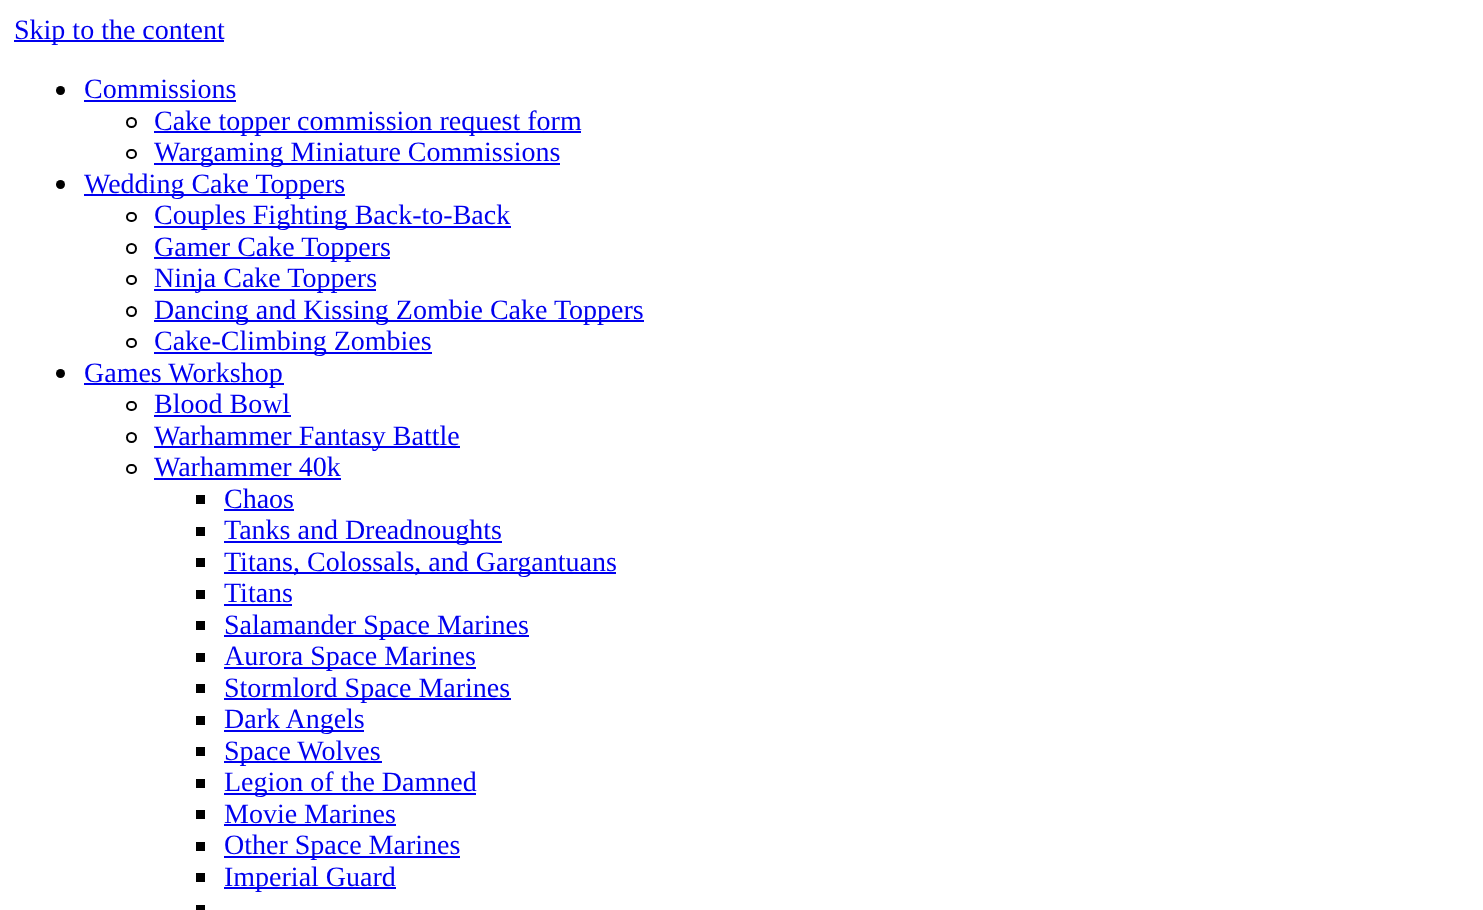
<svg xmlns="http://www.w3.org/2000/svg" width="1483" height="910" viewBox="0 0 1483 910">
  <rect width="100%" height="100%" fill="rgb(255,255,255)"/>
  <rect x="14" y="40" width="210" height="2" fill="rgb(0,0,238)"/>
  <text x="14" y="39" font-family="Liberation Serif" font-size="28" fill="rgb(0,0,238)">Skip to the content</text>
  <circle cx="60.5" cy="90.5" r="4.5" fill="rgb(0,0,0)"/>
  <text x="84" y="98" font-family="Liberation Serif" font-size="28" fill="rgb(0,0,238)">Commissions</text>
  <rect x="84" y="100" width="152" height="2" fill="rgb(0,0,238)"/>
  <circle cx="131.5" cy="122.5" r="4.5" fill="none" stroke="rgb(0,0,0)" stroke-width="2"/>
  <rect x="154" y="131" width="427" height="2" fill="rgb(0,0,238)"/>
  <text x="154" y="130" font-family="Liberation Serif" font-size="28" fill="rgb(0,0,238)">Cake topper commission request form</text>
  <rect x="127" y="150" width="9" height="8" rx="4" fill="none" stroke="rgb(0,0,0)" stroke-width="2"/>
  <rect x="154" y="163" width="406" height="2" fill="rgb(0,0,238)"/>
  <text x="154" y="161" font-family="Liberation Serif" font-size="28" fill="rgb(0,0,238)">Wargaming Miniature Commissions</text>
  <circle cx="60.5" cy="184.5" r="4.5" fill="rgb(0,0,0)"/>
  <rect x="84" y="194" width="261" height="2" fill="rgb(0,0,238)"/>
  <text x="84" y="193" font-family="Liberation Serif" font-size="28" fill="rgb(0,0,238)">Wedding Cake Toppers</text>
  <rect x="127" y="213" width="9" height="8" rx="4" fill="none" stroke="rgb(0,0,0)" stroke-width="2"/>
  <rect x="154" y="226" width="357" height="2" fill="rgb(0,0,238)"/>
  <text x="154" y="224" font-family="Liberation Serif" font-size="28" fill="rgb(0,0,238)">Couples Fighting Back-to-Back</text>
  <circle cx="131.5" cy="248.5" r="4.5" fill="none" stroke="rgb(0,0,0)" stroke-width="2"/>
  <rect x="154" y="257" width="236" height="2" fill="rgb(0,0,238)"/>
  <text x="154" y="256" font-family="Liberation Serif" font-size="28" fill="rgb(0,0,238)">Gamer Cake Toppers</text>
  <rect x="127" y="276" width="9" height="8" rx="4" fill="none" stroke="rgb(0,0,0)" stroke-width="2"/>
  <rect x="154" y="289" width="222" height="2" fill="rgb(0,0,238)"/>
  <text x="154" y="287" font-family="Liberation Serif" font-size="28" fill="rgb(0,0,238)">Ninja Cake Toppers</text>
  <circle cx="131.5" cy="311.5" r="4.5" fill="none" stroke="rgb(0,0,0)" stroke-width="2"/>
  <rect x="154" y="320" width="490" height="2" fill="rgb(0,0,238)"/>
  <text x="154" y="319" font-family="Liberation Serif" font-size="28" fill="rgb(0,0,238)">Dancing and Kissing Zombie Cake Toppers</text>
  <rect x="127" y="339" width="9" height="8" rx="4" fill="none" stroke="rgb(0,0,0)" stroke-width="2"/>
  <rect x="154" y="352" width="278" height="2" fill="rgb(0,0,238)"/>
  <text x="154" y="350" font-family="Liberation Serif" font-size="28" fill="rgb(0,0,238)">Cake-Climbing Zombies</text>
  <circle cx="60.5" cy="373.5" r="4.5" fill="rgb(0,0,0)"/>
  <rect x="84" y="383" width="200" height="2" fill="rgb(0,0,238)"/>
  <text x="84" y="382" font-family="Liberation Serif" font-size="28" fill="rgb(0,0,238)">Games Workshop</text>
  <rect x="127" y="402" width="9" height="8" rx="4" fill="none" stroke="rgb(0,0,0)" stroke-width="2"/>
  <text x="154" y="413" font-family="Liberation Serif" font-size="28" fill="rgb(0,0,238)">Blood Bowl</text>
  <rect x="154" y="415" width="137" height="2" fill="rgb(0,0,238)"/>
  <circle cx="131.5" cy="437.5" r="4.5" fill="none" stroke="rgb(0,0,0)" stroke-width="2"/>
  <rect x="154" y="446" width="306" height="2" fill="rgb(0,0,238)"/>
  <text x="154" y="445" font-family="Liberation Serif" font-size="28" fill="rgb(0,0,238)">Warhammer Fantasy Battle</text>
  <rect x="127" y="465" width="9" height="8" rx="4" fill="none" stroke="rgb(0,0,0)" stroke-width="2"/>
  <text x="154" y="476" font-family="Liberation Serif" font-size="28" fill="rgb(0,0,238)">Warhammer 40k</text>
  <rect x="154" y="478" width="187" height="2" fill="rgb(0,0,238)"/>
  <rect x="196" y="495" width="9" height="9" fill="rgb(0,0,0)"/>
  <text x="224" y="508" font-family="Liberation Serif" font-size="28" fill="rgb(0,0,238)">Chaos</text>
  <rect x="224" y="509" width="70" height="2" fill="rgb(0,0,238)"/>
  <rect x="196" y="527" width="9" height="9" fill="rgb(0,0,0)"/>
  <rect x="224" y="541" width="278" height="2" fill="rgb(0,0,238)"/>
  <text x="224" y="539" font-family="Liberation Serif" font-size="28" fill="rgb(0,0,238)">Tanks and Dreadnoughts</text>
  <rect x="196" y="558" width="9" height="9" fill="rgb(0,0,0)"/>
  <rect x="224" y="572" width="392" height="2" fill="rgb(0,0,238)"/>
  <text x="224" y="571" font-family="Liberation Serif" font-size="28" fill="rgb(0,0,238)">Titans, Colossals, and Gargantuans</text>
  <rect x="196" y="590" width="9" height="9" fill="rgb(0,0,0)"/>
  <text x="224" y="602" font-family="Liberation Serif" font-size="28" fill="rgb(0,0,238)">Titans</text>
  <rect x="224" y="604" width="68" height="2" fill="rgb(0,0,238)"/>
  <rect x="196" y="621" width="9" height="9" fill="rgb(0,0,0)"/>
  <rect x="224" y="635" width="305" height="2" fill="rgb(0,0,238)"/>
  <text x="224" y="634" font-family="Liberation Serif" font-size="28" fill="rgb(0,0,238)">Salamander Space Marines</text>
  <rect x="196" y="653" width="9" height="9" fill="rgb(0,0,0)"/>
  <rect x="224" y="667" width="252" height="2" fill="rgb(0,0,238)"/>
  <text x="224" y="665" font-family="Liberation Serif" font-size="28" fill="rgb(0,0,238)">Aurora Space Marines</text>
  <rect x="196" y="684" width="9" height="9" fill="rgb(0,0,0)"/>
  <rect x="224" y="698" width="287" height="2" fill="rgb(0,0,238)"/>
  <text x="224" y="697" font-family="Liberation Serif" font-size="28" fill="rgb(0,0,238)">Stormlord Space Marines</text>
  <rect x="196" y="716" width="9" height="9" fill="rgb(0,0,0)"/>
  <rect x="224" y="730" width="140" height="2" fill="rgb(0,0,238)"/>
  <text x="224" y="728" font-family="Liberation Serif" font-size="28" fill="rgb(0,0,238)">Dark Angels</text>
  <rect x="196" y="747" width="9" height="9" fill="rgb(0,0,0)"/>
  <rect x="224" y="761" width="158" height="2" fill="rgb(0,0,238)"/>
  <text x="224" y="760" font-family="Liberation Serif" font-size="28" fill="rgb(0,0,238)">Space Wolves</text>
  <rect x="196" y="779" width="9" height="9" fill="rgb(0,0,0)"/>
  <rect x="224" y="793" width="252" height="2" fill="rgb(0,0,238)"/>
  <text x="224" y="791" font-family="Liberation Serif" font-size="28" fill="rgb(0,0,238)">Legion of the Damned</text>
  <rect x="196" y="810" width="9" height="9" fill="rgb(0,0,0)"/>
  <text x="224" y="823" font-family="Liberation Serif" font-size="28" fill="rgb(0,0,238)">Movie Marines</text>
  <rect x="224" y="824" width="172" height="2" fill="rgb(0,0,238)"/>
  <rect x="196" y="842" width="9" height="9" fill="rgb(0,0,0)"/>
  <rect x="224" y="856" width="236" height="2" fill="rgb(0,0,238)"/>
  <text x="224" y="854" font-family="Liberation Serif" font-size="28" fill="rgb(0,0,238)">Other Space Marines</text>
  <rect x="196" y="873" width="9" height="9" fill="rgb(0,0,0)"/>
  <rect x="224" y="887" width="172" height="2" fill="rgb(0,0,238)"/>
  <text x="224" y="886" font-family="Liberation Serif" font-size="28" fill="rgb(0,0,238)">Imperial Guard</text>
  <rect x="196" y="905" width="9" height="5" fill="rgb(0,0,0)"/>
</svg>
